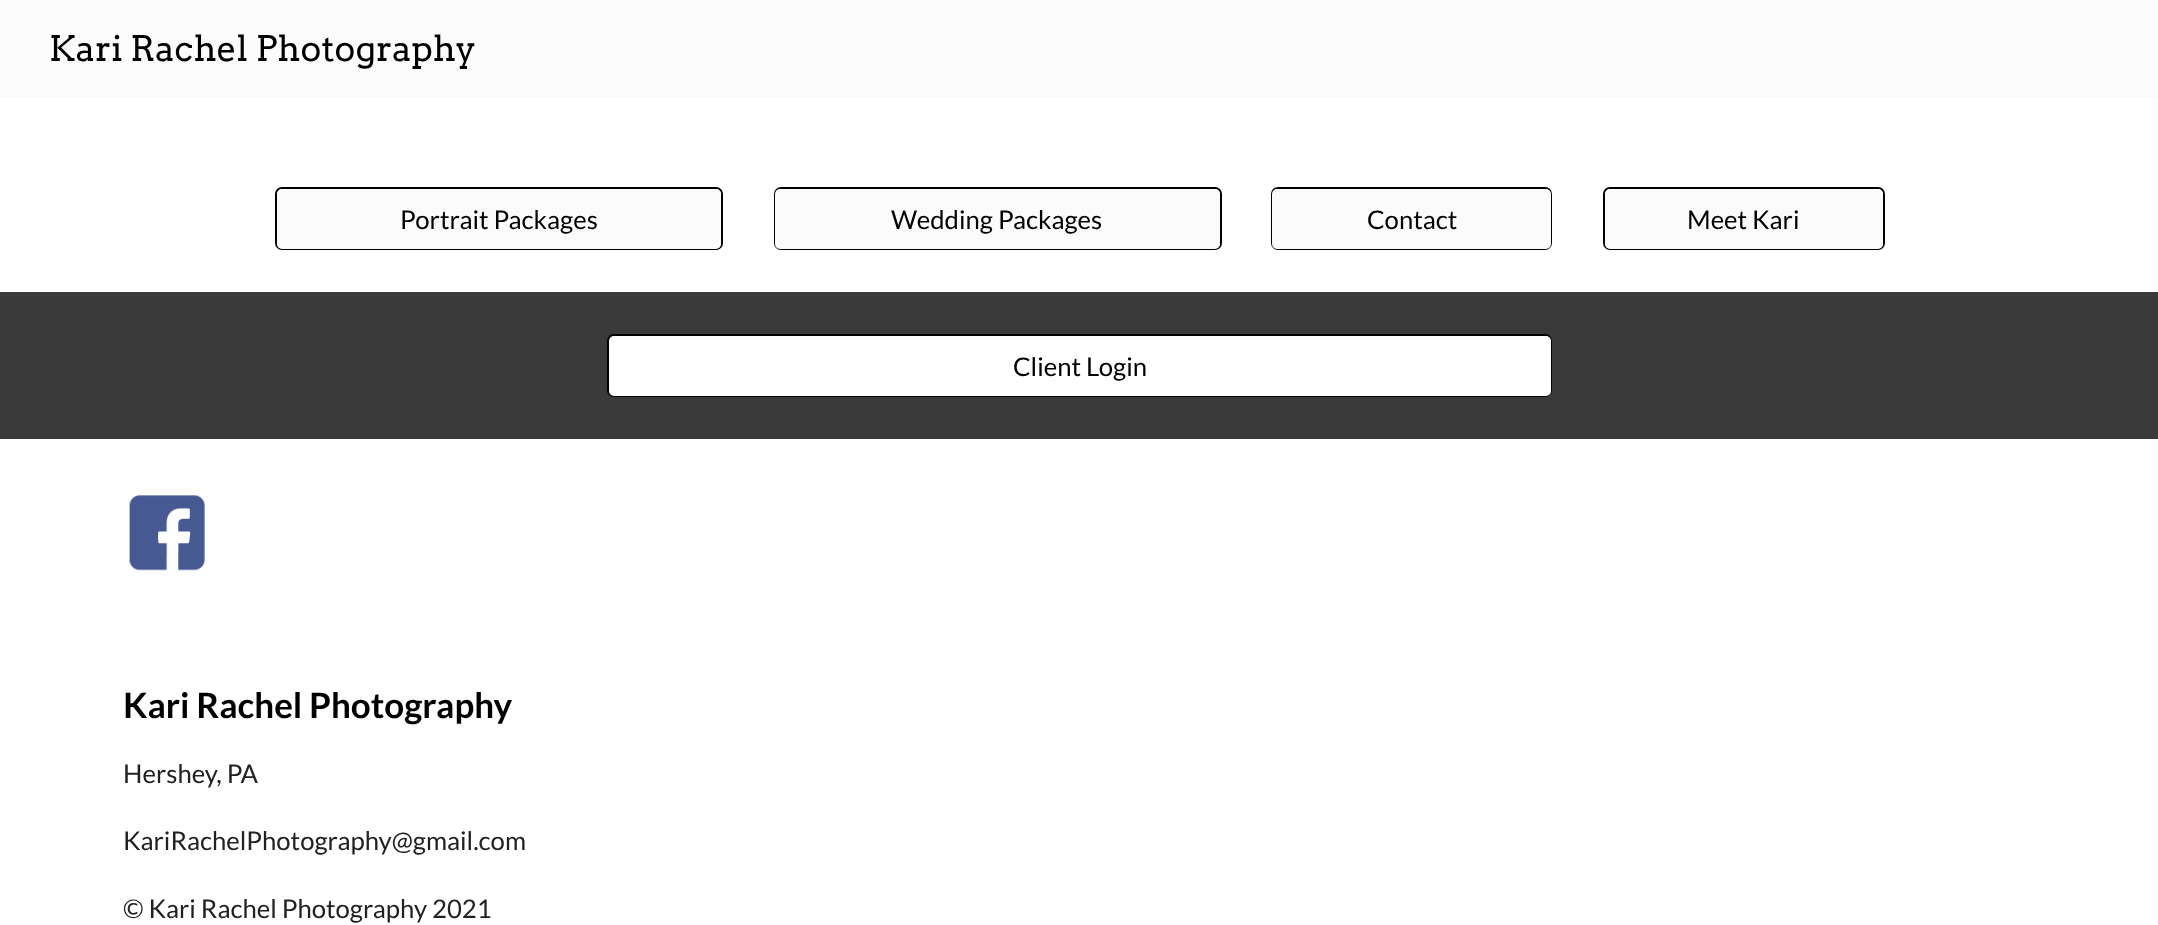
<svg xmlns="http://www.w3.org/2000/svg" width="2158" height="925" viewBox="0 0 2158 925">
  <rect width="100%" height="100%" fill="rgb(255,255,255)"/>
  <rect x="0" y="0" width="2158" height="98" fill="rgb(251,251,251)"/>
  <text x="49" y="61" font-family="Arvo" font-size="35" fill="rgb(0,0,0)">Kari Rachel Photography</text>
  <rect x="276" y="188" width="446" height="61" rx="6" fill="none" stroke="rgb(0,0,0)" stroke-width="2"/>
  <rect x="277" y="189" width="444" height="60" rx="5" fill="rgb(251,251,251)"/>
  <text x="400" y="229" font-family="Lato" font-size="25.7" fill="rgb(0,0,0)">Portrait Packages</text>
  <rect x="775" y="188" width="446" height="61" rx="6" fill="none" stroke="rgb(0,0,0)" stroke-width="2"/>
  <rect x="775" y="189" width="445" height="60" rx="5" fill="rgb(251,251,251)"/>
  <text x="891" y="229" font-family="Lato" font-size="25.7" fill="rgb(0,0,0)">Wedding Packages</text>
  <rect x="1272" y="188" width="279" height="61" rx="6" fill="none" stroke="rgb(0,0,0)" stroke-width="2"/>
  <rect x="1272" y="189" width="279" height="60" rx="5" fill="rgb(251,251,251)"/>
  <text x="1367" y="229" font-family="Lato" font-size="25.7" fill="rgb(0,0,0)">Contact</text>
  <rect x="1604" y="188" width="280" height="61" rx="6" fill="none" stroke="rgb(0,0,0)" stroke-width="2"/>
  <rect x="1605" y="189" width="278" height="60" rx="5" fill="rgb(251,251,251)"/>
  <text x="1687" y="229" font-family="Lato" font-size="25.7" fill="rgb(0,0,0)">Meet Kari</text>
  <rect x="0" y="292" width="2158" height="147" fill="rgb(58,58,58)"/>
  <rect x="608" y="335" width="943" height="61" rx="6" fill="none" stroke="rgb(0,0,0)" stroke-width="2"/>
  <rect x="609" y="336" width="942" height="60" rx="5" fill="rgb(255,255,255)"/>
  <text x="1013" y="376" font-family="Lato" font-size="25.7" fill="rgb(0,0,0)">Client Login</text>
  <image x="129" y="495" width="76" height="76" href="pic1.png"/>
  <text x="123" y="718" font-family="Lato" font-size="35" font-weight="bold" fill="rgb(0,0,0)">Kari Rachel Photography</text>
  <g font-family="Lato" font-size="25.7" fill="rgb(33,33,33)">
    <text x="123" y="783">Hershey, PA</text>
    <text x="123" y="850">KariRachelPhotography@gmail.com</text>
    <text x="123" y="918">© Kari Rachel Photography 2021</text>
  </g>
</svg>
